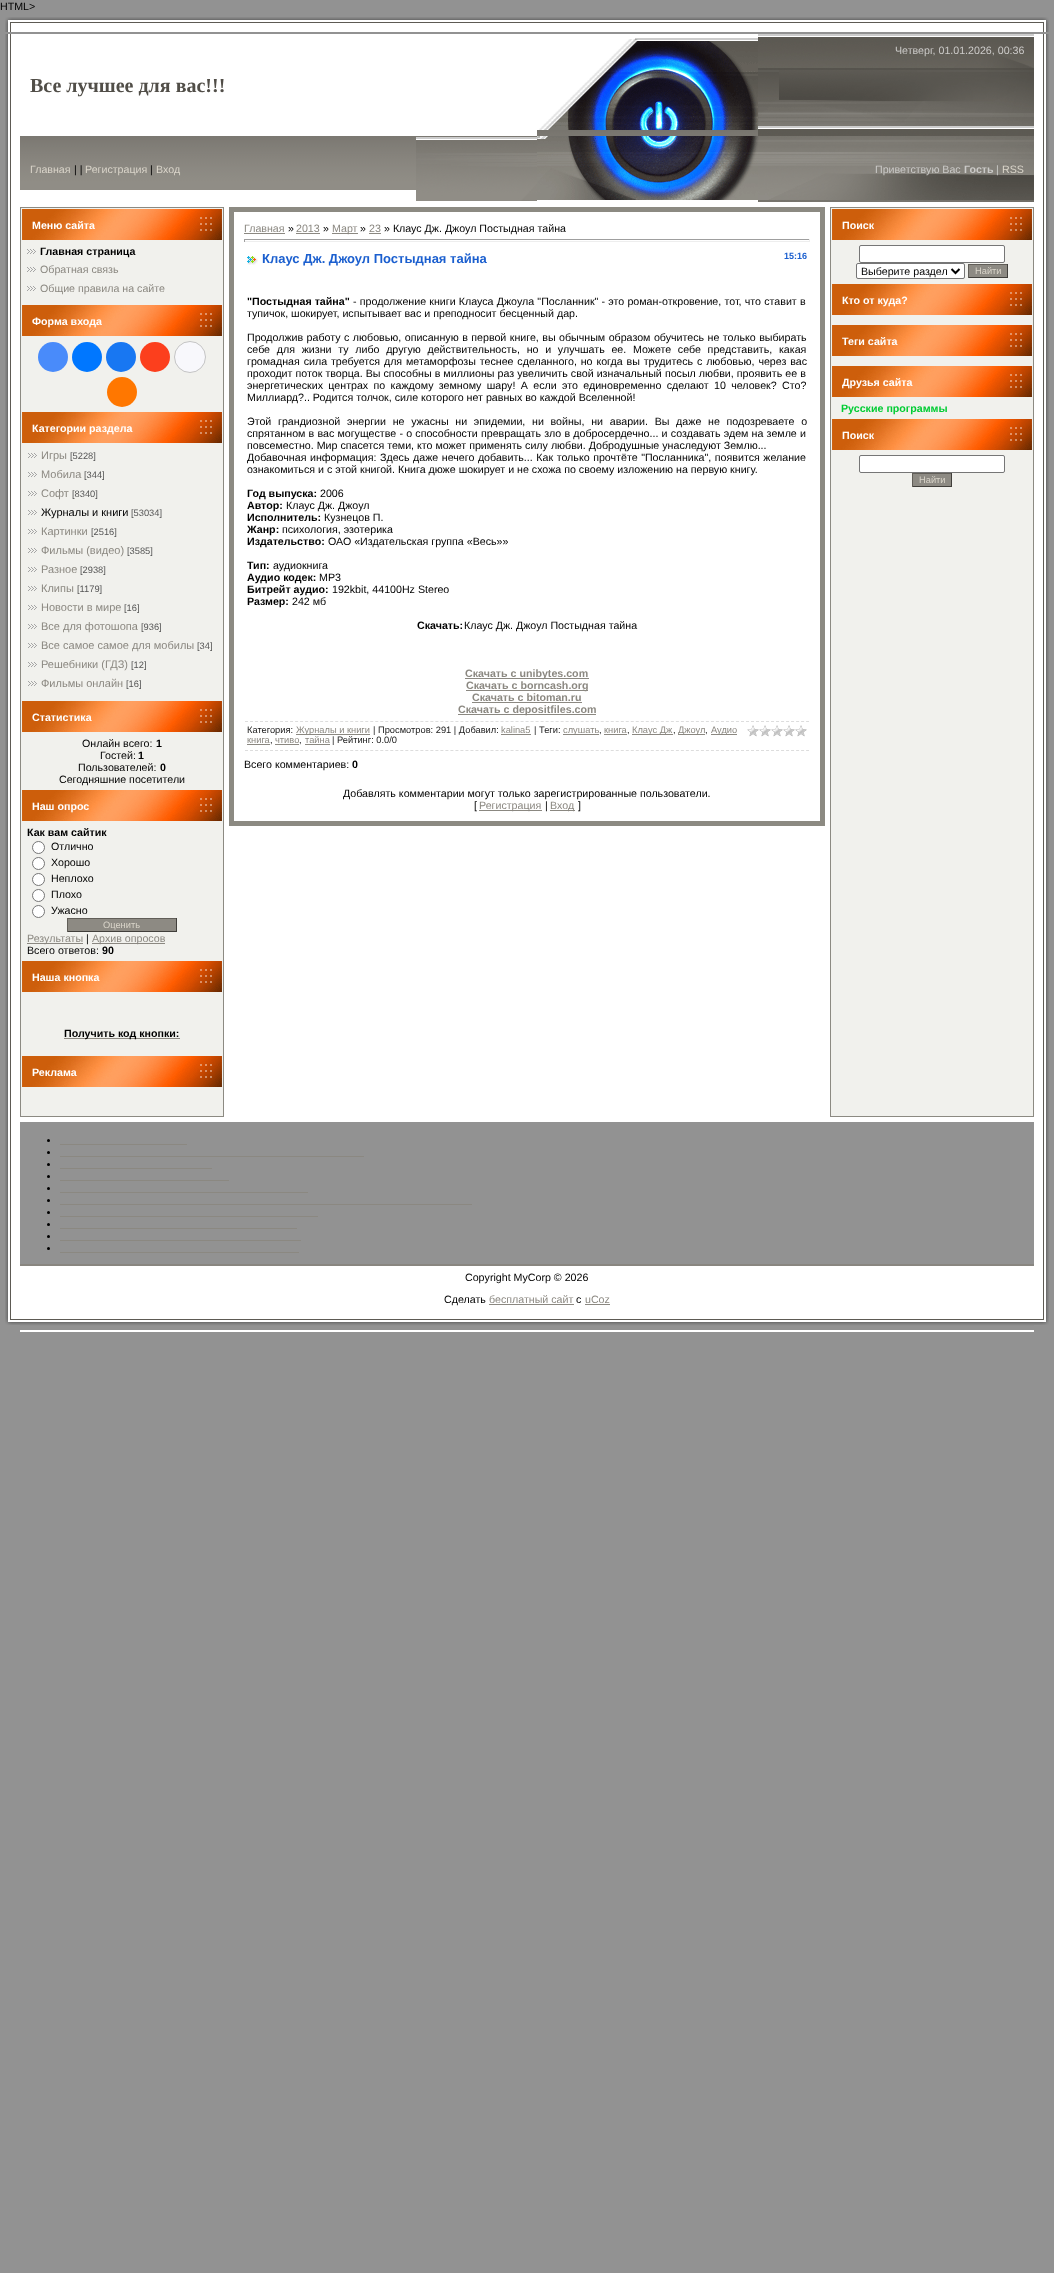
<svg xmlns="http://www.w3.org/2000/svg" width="1054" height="2273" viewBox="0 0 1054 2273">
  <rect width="100%" height="100%" fill="rgb(146,146,146)"/>
  <text x="0" y="10" font-family="Liberation Sans" font-size="10.67" fill="rgb(0,0,0)">HTML&gt;</text>
  <image x="5" y="17" width="15" height="15" href="pic1.png"/>
  <image x="20" y="17" width="1014" height="15" href="pic2.png"/>
  <image x="1034" y="17" width="15" height="15" href="pic3.png"/>
  <image x="5" y="34" width="15" height="1276" href="pic4.png"/>
  <image x="20" y="34" width="738" height="168" href="pic5.png"/>
  <image x="537" y="38" width="221" height="92" href="pic6.png"/>
  <image x="758" y="34" width="276" height="102" href="pic7.png"/>
  <text x="895" y="54" font-family="Liberation Sans" font-size="10.67" fill="rgb(203,202,200)">Четверг, 01.01.2026, 00:36</text>
  <rect x="20" y="126" width="517" height="10" fill="rgb(255,255,255)"/>
  <text x="30" y="92" font-family="Liberation Serif" font-size="20" font-weight="bold" fill="rgb(81,78,72)">Все лучшее для вас!!!</text>
  <image x="416" y="137" width="121" height="64" href="pic8.png"/>
  <text x="30" y="173" font-family="Liberation Sans" font-size="10.67" fill="rgb(218,213,202)">Главная</text>
  <text x="74" y="173" font-family="Liberation Sans" font-size="10.67" fill="rgb(0,0,0)">| |</text>
  <text x="85" y="173" font-family="Liberation Sans" font-size="10.67" fill="rgb(218,213,202)">Регистрация</text>
  <text x="150" y="173" font-family="Liberation Sans" font-size="10.67" fill="rgb(0,0,0)">|</text>
  <text x="156" y="173" font-family="Liberation Sans" font-size="10.67" fill="rgb(218,213,202)">Вход</text>
  <image x="537" y="136" width="221" height="64" href="pic9.png"/>
  <image x="758" y="136" width="276" height="66" href="pic10.png"/>
  <text x="875" y="173" font-family="Liberation Sans" font-size="10.67" fill="rgb(203,202,200)">Приветствую Вас</text>
  <text x="964" y="173" font-family="Liberation Sans" font-size="10.67" font-weight="bold" fill="rgb(203,202,200)">Гость</text>
  <text x="996" y="173" font-family="Liberation Sans" font-size="10.67" fill="rgb(203,202,200)">|</text>
  <text x="1002" y="173" font-family="Liberation Sans" font-size="10.67" fill="rgb(218,213,202)">RSS</text>
  <rect x="20" y="202" width="1014" height="920" fill="rgb(255,255,255)"/>
  <rect x="20.5" y="207.5" width="203" height="909" fill="rgb(241,241,237)" stroke="rgb(140,138,130)"/>
  <image x="22" y="209" width="200" height="31" href="pic11.png"/>
  <text x="32" y="229" font-family="Liberation Sans" font-size="10.67" font-weight="bold" fill="rgb(255,255,255)">Меню сайта</text>
  <image x="27" y="249" width="9" height="5" href="pic12.png"/>
  <text x="40" y="255" font-family="Liberation Sans" font-size="10.67" font-weight="bold" fill="rgb(0,0,0)">Главная страница</text>
  <image x="27" y="267" width="9" height="5" href="pic12.png"/>
  <text x="40" y="273" font-family="Liberation Sans" font-size="10.67" fill="rgb(139,136,129)">Обратная связь</text>
  <image x="27" y="286" width="9" height="5" href="pic12.png"/>
  <text x="40" y="292" font-family="Liberation Sans" font-size="10.67" fill="rgb(139,136,129)">Общие правила на сайте</text>
  <image x="22" y="305" width="200" height="31" href="pic11.png"/>
  <text x="32" y="325" font-family="Liberation Sans" font-size="10.67" font-weight="bold" fill="rgb(255,255,255)">Форма входа</text>
  <circle cx="53" cy="357" r="15" fill="rgb(73,139,250)"/>
  <circle cx="87" cy="357" r="15" fill="rgb(0,119,255)"/>
  <circle cx="121" cy="357" r="15" fill="rgb(24,119,242)"/>
  <circle cx="155" cy="357" r="15" fill="rgb(252,63,29)"/>
  <circle cx="190" cy="357" r="15.5" fill="rgb(248,248,252)" stroke="rgb(196,196,196)"/>
  <circle cx="122" cy="392" r="15" fill="rgb(255,119,0)"/>
  <image x="22" y="412" width="200" height="31" href="pic11.png"/>
  <text x="32" y="432" font-family="Liberation Sans" font-size="10.67" font-weight="bold" fill="rgb(255,255,255)">Категории раздела</text>
  <image x="28" y="453" width="9" height="5" href="pic12.png"/>
  <text x="41" y="459" font-family="Liberation Sans" font-size="11" fill="rgb(139,136,129)">Игры</text>
  <text x="70" y="459" font-family="Liberation Sans" font-size="9.3" fill="rgb(85,85,85)">[5228]</text>
  <image x="28" y="472" width="9" height="5" href="pic12.png"/>
  <text x="41" y="478" font-family="Liberation Sans" font-size="11" fill="rgb(139,136,129)">Мобила</text>
  <text x="84" y="478" font-family="Liberation Sans" font-size="9.3" fill="rgb(85,85,85)">[344]</text>
  <image x="28" y="491" width="9" height="5" href="pic12.png"/>
  <text x="41" y="497" font-family="Liberation Sans" font-size="11" fill="rgb(139,136,129)">Софт</text>
  <text x="72" y="497" font-family="Liberation Sans" font-size="9.3" fill="rgb(85,85,85)">[8340]</text>
  <image x="28" y="510" width="9" height="5" href="pic12.png"/>
  <text x="41" y="516" font-family="Liberation Sans" font-size="11" fill="rgb(0,0,0)">Журналы и книги</text>
  <text x="131" y="516" font-family="Liberation Sans" font-size="9.3" fill="rgb(85,85,85)">[53034]</text>
  <image x="28" y="529" width="9" height="5" href="pic12.png"/>
  <text x="41" y="535" font-family="Liberation Sans" font-size="11" fill="rgb(139,136,129)">Картинки</text>
  <text x="91" y="535" font-family="Liberation Sans" font-size="9.3" fill="rgb(85,85,85)">[2516]</text>
  <image x="28" y="548" width="9" height="5" href="pic12.png"/>
  <text x="41" y="554" font-family="Liberation Sans" font-size="11" fill="rgb(139,136,129)">Фильмы (видео)</text>
  <text x="127" y="554" font-family="Liberation Sans" font-size="9.3" fill="rgb(85,85,85)">[3585]</text>
  <image x="28" y="567" width="9" height="5" href="pic12.png"/>
  <text x="41" y="573" font-family="Liberation Sans" font-size="11" fill="rgb(139,136,129)">Разное</text>
  <text x="80" y="573" font-family="Liberation Sans" font-size="9.3" fill="rgb(85,85,85)">[2938]</text>
  <image x="28" y="586" width="9" height="5" href="pic12.png"/>
  <text x="41" y="592" font-family="Liberation Sans" font-size="11" fill="rgb(139,136,129)">Клипы</text>
  <text x="77" y="592" font-family="Liberation Sans" font-size="9.3" fill="rgb(85,85,85)">[1179]</text>
  <image x="28" y="605" width="9" height="5" href="pic12.png"/>
  <text x="41" y="611" font-family="Liberation Sans" font-size="11" fill="rgb(139,136,129)">Новости в мире</text>
  <text x="124" y="611" font-family="Liberation Sans" font-size="9.3" fill="rgb(85,85,85)">[16]</text>
  <image x="28" y="624" width="9" height="5" href="pic12.png"/>
  <text x="41" y="630" font-family="Liberation Sans" font-size="11" fill="rgb(139,136,129)">Все для фотошопа</text>
  <text x="141" y="630" font-family="Liberation Sans" font-size="9.3" fill="rgb(85,85,85)">[936]</text>
  <image x="28" y="643" width="9" height="5" href="pic12.png"/>
  <text x="41" y="649" font-family="Liberation Sans" font-size="11" fill="rgb(139,136,129)">Все самое самое для мобилы</text>
  <text x="197" y="649" font-family="Liberation Sans" font-size="9.3" fill="rgb(85,85,85)">[34]</text>
  <image x="28" y="662" width="9" height="5" href="pic12.png"/>
  <text x="41" y="668" font-family="Liberation Sans" font-size="11" fill="rgb(139,136,129)">Решебники (ГДЗ)</text>
  <text x="131" y="668" font-family="Liberation Sans" font-size="9.3" fill="rgb(85,85,85)">[12]</text>
  <image x="28" y="681" width="9" height="5" href="pic12.png"/>
  <text x="41" y="687" font-family="Liberation Sans" font-size="11" fill="rgb(139,136,129)">Фильмы онлайн</text>
  <text x="126" y="687" font-family="Liberation Sans" font-size="9.3" fill="rgb(85,85,85)">[16]</text>
  <image x="22" y="701" width="200" height="31" href="pic11.png"/>
  <text x="32" y="721" font-family="Liberation Sans" font-size="10.67" font-weight="bold" fill="rgb(255,255,255)">Статистика</text>
  <text x="82" y="747" font-family="Liberation Sans" font-size="10.67" fill="rgb(0,0,0)">Онлайн всего:</text>
  <text x="156" y="747" font-family="Liberation Sans" font-size="10.67" font-weight="bold" fill="rgb(0,0,0)">1</text>
  <text x="100" y="759" font-family="Liberation Sans" font-size="10.67" fill="rgb(0,0,0)">Гостей:</text>
  <text x="138" y="759" font-family="Liberation Sans" font-size="10.67" font-weight="bold" fill="rgb(0,0,0)">1</text>
  <text x="78" y="771" font-family="Liberation Sans" font-size="10.67" fill="rgb(0,0,0)">Пользователей:</text>
  <text x="160" y="771" font-family="Liberation Sans" font-size="10.67" font-weight="bold" fill="rgb(0,0,0)">0</text>
  <text x="59" y="783" font-family="Liberation Sans" font-size="10.67" fill="rgb(0,0,0)">Сегодняшние посетители</text>
  <image x="22" y="790" width="200" height="31" href="pic11.png"/>
  <text x="32" y="810" font-family="Liberation Sans" font-size="10.67" font-weight="bold" fill="rgb(255,255,255)">Наш опрос</text>
  <text x="27" y="836" font-family="Liberation Sans" font-size="10.67" font-weight="bold" fill="rgb(0,0,0)">Как вам сайтик</text>
  <circle cx="38.5" cy="847.5" r="6" fill="rgb(255,255,255)" stroke="rgb(118,118,118)"/>
  <text x="51" y="850" font-family="Liberation Sans" font-size="10.67" fill="rgb(0,0,0)">Отлично</text>
  <circle cx="38.5" cy="863.5" r="6" fill="rgb(255,255,255)" stroke="rgb(118,118,118)"/>
  <text x="51" y="866" font-family="Liberation Sans" font-size="10.67" fill="rgb(0,0,0)">Хорошо</text>
  <circle cx="38.5" cy="879.5" r="6" fill="rgb(255,255,255)" stroke="rgb(118,118,118)"/>
  <text x="51" y="882" font-family="Liberation Sans" font-size="10.67" fill="rgb(0,0,0)">Неплохо</text>
  <circle cx="38.5" cy="895.5" r="6" fill="rgb(255,255,255)" stroke="rgb(118,118,118)"/>
  <text x="51" y="898" font-family="Liberation Sans" font-size="10.67" fill="rgb(0,0,0)">Плохо</text>
  <circle cx="38.5" cy="911.5" r="6" fill="rgb(255,255,255)" stroke="rgb(118,118,118)"/>
  <text x="51" y="914" font-family="Liberation Sans" font-size="10.67" fill="rgb(0,0,0)">Ужасно</text>
  <rect x="68" y="919" width="108" height="12" fill="rgb(141,138,131)"/>
  <rect x="67" y="918" width="110" height="1" fill="rgb(97,94,88)"/>
  <rect x="176" y="918" width="1" height="14" fill="rgb(65,63,59)"/>
  <rect x="67" y="931" width="110" height="1" fill="rgb(65,63,59)"/>
  <rect x="67" y="918" width="1" height="14" fill="rgb(97,94,88)"/>
  <text x="103" y="928" font-family="Liberation Sans" font-size="9.3" fill="rgb(218,213,202)">Оценить</text>
  <rect x="27" y="943" width="56" height="1" fill="rgb(139,136,129)"/>
  <text x="27" y="942" font-family="Liberation Sans" font-size="10.67" fill="rgb(139,136,129)">Результаты</text>
  <text x="86" y="942" font-family="Liberation Sans" font-size="10.67" fill="rgb(0,0,0)">|</text>
  <rect x="92" y="943" width="73" height="1" fill="rgb(139,136,129)"/>
  <text x="92" y="942" font-family="Liberation Sans" font-size="10.67" fill="rgb(139,136,129)">Архив опросов</text>
  <text x="27" y="954" font-family="Liberation Sans" font-size="10.67" fill="rgb(0,0,0)">Всего ответов:</text>
  <text x="102" y="954" font-family="Liberation Sans" font-size="10.67" font-weight="bold" fill="rgb(0,0,0)">90</text>
  <image x="22" y="961" width="200" height="31" href="pic11.png"/>
  <text x="32" y="981" font-family="Liberation Sans" font-size="10.67" font-weight="bold" fill="rgb(255,255,255)">Наша кнопка</text>
  <rect x="64" y="1038" width="116" height="1" fill="rgb(139,136,129)"/>
  <text x="64" y="1037" font-family="Liberation Sans" font-size="10.67" font-weight="bold" fill="rgb(0,0,0)">Получить код кнопки:</text>
  <image x="22" y="1056" width="200" height="31" href="pic11.png"/>
  <text x="32" y="1076" font-family="Liberation Sans" font-size="10.67" font-weight="bold" fill="rgb(255,255,255)">Реклама</text>
  <rect x="231.5" y="209.5" width="591" height="614" fill="none" stroke="rgb(140,138,130)" stroke-width="5"/>
  <text x="244" y="232" font-family="Liberation Sans" font-size="10.67" fill="rgb(139,136,129)">Главная</text>
  <rect x="244" y="233" width="41" height="1" fill="rgb(139,136,129)"/>
  <text x="288" y="232" font-family="Liberation Sans" font-size="10.67" fill="rgb(0,0,0)">»</text>
  <text x="296" y="232" font-family="Liberation Sans" font-size="10.67" fill="rgb(139,136,129)">2013</text>
  <rect x="296" y="233" width="24" height="1" fill="rgb(139,136,129)"/>
  <text x="323" y="232" font-family="Liberation Sans" font-size="10.67" fill="rgb(0,0,0)">»</text>
  <rect x="332" y="233" width="26" height="1" fill="rgb(139,136,129)"/>
  <text x="332" y="232" font-family="Liberation Sans" font-size="10.67" fill="rgb(139,136,129)">Март</text>
  <text x="360" y="232" font-family="Liberation Sans" font-size="10.67" fill="rgb(0,0,0)">»</text>
  <text x="369" y="232" font-family="Liberation Sans" font-size="10.67" fill="rgb(139,136,129)">23</text>
  <rect x="369" y="233" width="12" height="1" fill="rgb(139,136,129)"/>
  <text x="384" y="232" font-family="Liberation Sans" font-size="10.67" fill="rgb(0,0,0)">» Клаус Дж. Джоул Постыдная тайна</text>
  <rect x="244" y="239" width="566" height="1" fill="rgb(159,159,159)"/>
  <rect x="809" y="239" width="1" height="3" fill="rgb(238,238,238)"/>
  <rect x="244" y="241" width="566" height="1" fill="rgb(238,238,238)"/>
  <rect x="244" y="239" width="1" height="3" fill="rgb(159,159,159)"/>
  <image x="247" y="256" width="11" height="9" href="pic13.png"/>
  <text x="262" y="263" font-family="Liberation Sans" font-size="13" font-weight="bold" fill="rgb(27,95,207)">Клаус Дж. Джоул Постыдная тайна</text>
  <text x="784" y="259" font-family="Liberation Sans" font-size="9" font-weight="bold" fill="rgb(27,95,207)">15:16</text>
  <text x="247" y="305" font-family="Liberation Sans" font-size="10.67" font-weight="bold" fill="rgb(0,0,0)">"Постыдная тайна"</text>
  <g font-family="Liberation Sans" font-size="10.67" fill="rgb(0,0,0)">
    <text x="353" y="305" word-spacing="0.25">- продолжение книги Клауса Джоула "Посланник" - это роман-откровение, тот, что ставит в</text>
    <text x="247" y="317">тупичок, шокирует, испытывает вас и преподносит бесценный дар.</text>
    <text>
      <tspan x="247" y="341" word-spacing="0.5">Продолжив работу с любовью, описанную в первой книге, вы обычным образом обучитесь не только выбирать</tspan>
      <tspan x="247" y="353" word-spacing="3.75">себе для жизни ту либо другую действительность, но и улучшать ее. Можете себе представить, какая</tspan>
      <tspan x="247" y="365" word-spacing="0.9">громадная сила требуется для метаморфозы теснее сделанного, но когда вы трудитесь с любовью, через вас</tspan>
      <tspan x="247" y="377" word-spacing="0.1">проходит поток творца. Вы способны в миллионы раз увеличить свой изначальный посыл любви, проявить ее в</tspan>
      <tspan x="247" y="389" word-spacing="2.4">энергетических центрах по каждому земному шару! А если это единовременно сделают 10 человек? Сто?</tspan>
      <tspan x="247" y="401">Миллиард?.. Родится толчок, силе которого нет равных во каждой Вселенной!</tspan>
    </text>
    <text>
      <tspan x="247" y="425" word-spacing="3.75">Этой грандиозной энергии не ужасны ни эпидемии, ни войны, ни аварии. Вы даже не подозреваете о</tspan>
      <tspan x="247" y="437" word-spacing="0.25">спрятанном в вас могуществе - о способности превращать зло в добросердечно... и создавать эдем на земле и</tspan>
      <tspan x="247" y="449">повсеместно. Мир спасется теми, кто может применять силу любви. Добродушные унаследуют Землю...</tspan>
      <tspan x="247" y="461" word-spacing="0.6">Добавочная информация: Здесь даже нечего добавить... Как только прочтёте "Посланника", появится желание</tspan>
      <tspan x="247" y="473">ознакомиться и с этой книгой. Книга дюже шокирует и не схожа по своему изложению на первую книгу.</tspan>
    </text>
  </g>
  <text x="247" y="497" font-family="Liberation Sans" font-size="10.67" font-weight="bold" fill="rgb(0,0,0)">Год выпуска:</text>
  <text x="320" y="497" font-family="Liberation Sans" font-size="10.67" fill="rgb(0,0,0)">2006</text>
  <text x="247" y="509" font-family="Liberation Sans" font-size="10.67" font-weight="bold" fill="rgb(0,0,0)">Автор:</text>
  <text x="286" y="509" font-family="Liberation Sans" font-size="10.67" fill="rgb(0,0,0)">Клаус Дж. Джоул</text>
  <text x="247" y="521" font-family="Liberation Sans" font-size="10.67" font-weight="bold" fill="rgb(0,0,0)">Исполнитель:</text>
  <text x="324" y="521" font-family="Liberation Sans" font-size="10.67" fill="rgb(0,0,0)">Кузнецов П.</text>
  <text x="247" y="533" font-family="Liberation Sans" font-size="10.67" font-weight="bold" fill="rgb(0,0,0)">Жанр:</text>
  <text x="282" y="533" font-family="Liberation Sans" font-size="10.67" fill="rgb(0,0,0)">психология, эзотерика</text>
  <text x="247" y="545" font-family="Liberation Sans" font-size="10.67" font-weight="bold" fill="rgb(0,0,0)">Издательство:</text>
  <text x="328" y="545" font-family="Liberation Sans" font-size="10.67" fill="rgb(0,0,0)">ОАО «Издательская группа «Весь»»</text>
  <text x="247" y="569" font-family="Liberation Sans" font-size="10.67" font-weight="bold" fill="rgb(0,0,0)">Тип:</text>
  <text x="273" y="569" font-family="Liberation Sans" font-size="10.67" fill="rgb(0,0,0)">аудиокнига</text>
  <text x="247" y="581" font-family="Liberation Sans" font-size="10.67" font-weight="bold" fill="rgb(0,0,0)">Аудио кодек:</text>
  <text x="319" y="581" font-family="Liberation Sans" font-size="10.67" fill="rgb(0,0,0)">MP3</text>
  <text x="247" y="593" font-family="Liberation Sans" font-size="10.67" font-weight="bold" fill="rgb(0,0,0)">Битрейт аудио:</text>
  <text x="332" y="593" font-family="Liberation Sans" font-size="10.67" fill="rgb(0,0,0)">192kbit, 44100Hz Stereo</text>
  <text x="247" y="605" font-family="Liberation Sans" font-size="10.67" font-weight="bold" fill="rgb(0,0,0)">Размер:</text>
  <text x="292" y="605" font-family="Liberation Sans" font-size="10.67" fill="rgb(0,0,0)">242 мб</text>
  <text x="417" y="629" font-family="Liberation Sans" font-size="10.67" font-weight="bold" fill="rgb(0,0,0)">Скачать:</text>
  <text x="464" y="629" font-family="Liberation Sans" font-size="10.67" fill="rgb(0,0,0)">Клаус Дж. Джоул Постыдная тайна</text>
  <rect x="465" y="678" width="124" height="1" fill="rgb(139,136,129)"/>
  <text x="465" y="677" font-family="Liberation Sans" font-size="10.67" font-weight="bold" fill="rgb(139,136,129)">Скачать с unibytes.com</text>
  <rect x="466" y="690" width="122" height="1" fill="rgb(139,136,129)"/>
  <g font-family="Liberation Sans" font-size="10.67" font-weight="bold" fill="rgb(139,136,129)">
    <text x="466" y="689">Скачать с borncash.org</text>
    <text x="472" y="701">Скачать с bitoman.ru</text>
  </g>
  <rect x="472" y="702" width="110" height="1" fill="rgb(139,136,129)"/>
  <rect x="458" y="714" width="138" height="1" fill="rgb(139,136,129)"/>
  <text x="458" y="713" font-family="Liberation Sans" font-size="10.67" font-weight="bold" fill="rgb(139,136,129)">Скачать с depositfiles.com</text>
  <path d="M245 721.5H809" fill="none" stroke="rgb(221,221,221)" stroke-dasharray="3 2.01"/>
  <path d="M245 750.5H809" fill="none" stroke="rgb(221,221,221)" stroke-dasharray="3 2.01"/>
  <text x="247" y="733" font-family="Liberation Sans" font-size="9.3" fill="rgb(26,26,26)">Категория:</text>
  <rect x="296" y="734" width="74" height="1" fill="rgb(139,136,129)"/>
  <text x="296" y="733" font-family="Liberation Sans" font-size="9.3" fill="rgb(139,136,129)">Журналы и книги</text>
  <text x="373" y="733" font-family="Liberation Sans" font-size="9.3" fill="rgb(26,26,26)">| Просмотров: 291 | Добавил:</text>
  <text x="501" y="733" font-family="Liberation Sans" font-size="9.3" fill="rgb(139,136,129)">kalina5</text>
  <rect x="501" y="734" width="30" height="1" fill="rgb(139,136,129)"/>
  <text x="534" y="733" font-family="Liberation Sans" font-size="9.3" fill="rgb(26,26,26)">| Теги:</text>
  <rect x="563" y="734" width="36" height="1" fill="rgb(139,136,129)"/>
  <text x="563" y="733" font-family="Liberation Sans" font-size="9.3" fill="rgb(139,136,129)">слушать</text>
  <text x="599" y="733" font-family="Liberation Sans" font-size="9.3" fill="rgb(26,26,26)">,</text>
  <text x="604" y="733" font-family="Liberation Sans" font-size="9.3" fill="rgb(139,136,129)">книга</text>
  <text x="627" y="733" font-family="Liberation Sans" font-size="9.3" fill="rgb(26,26,26)">,</text>
  <rect x="604" y="734" width="23" height="1" fill="rgb(139,136,129)"/>
  <rect x="632" y="734" width="41" height="1" fill="rgb(139,136,129)"/>
  <text x="632" y="733" font-family="Liberation Sans" font-size="9.3" fill="rgb(139,136,129)">Клаус Дж</text>
  <text x="673" y="733" font-family="Liberation Sans" font-size="9.3" fill="rgb(26,26,26)">,</text>
  <rect x="678" y="734" width="27" height="1" fill="rgb(139,136,129)"/>
  <text x="678" y="733" font-family="Liberation Sans" font-size="9.3" fill="rgb(139,136,129)">Джоул</text>
  <text x="705" y="733" font-family="Liberation Sans" font-size="9.3" fill="rgb(26,26,26)">,</text>
  <rect x="711" y="734" width="26" height="1" fill="rgb(139,136,129)"/>
  <text x="711" y="733" font-family="Liberation Sans" font-size="9.3" fill="rgb(139,136,129)">Аудио</text>
  <image x="747" y="725" width="60" height="12" href="pic14.png"/>
  <text x="247" y="743" font-family="Liberation Sans" font-size="9.3" fill="rgb(139,136,129)">книга</text>
  <text x="270" y="743" font-family="Liberation Sans" font-size="9.3" fill="rgb(26,26,26)">,</text>
  <rect x="247" y="744" width="23" height="1" fill="rgb(139,136,129)"/>
  <text x="275" y="743" font-family="Liberation Sans" font-size="9.3" fill="rgb(139,136,129)">чтиво</text>
  <text x="299" y="743" font-family="Liberation Sans" font-size="9.3" fill="rgb(26,26,26)">,</text>
  <rect x="275" y="744" width="24" height="1" fill="rgb(139,136,129)"/>
  <rect x="305" y="744" width="25" height="1" fill="rgb(139,136,129)"/>
  <text x="305" y="743" font-family="Liberation Sans" font-size="9.3" fill="rgb(139,136,129)">тайна</text>
  <text x="332" y="743" font-family="Liberation Sans" font-size="9.3" fill="rgb(26,26,26)">| Рейтинг: 0.0/0</text>
  <text x="244" y="768" font-family="Liberation Sans" font-size="10.67" fill="rgb(0,0,0)">Всего комментариев:</text>
  <text x="352" y="768" font-family="Liberation Sans" font-size="10.67" font-weight="bold" fill="rgb(0,0,0)">0</text>
  <g font-family="Liberation Sans" font-size="10.67" fill="rgb(0,0,0)">
    <text x="343" y="797">Добавлять комментарии могут только зарегистрированные пользователи.</text>
    <text x="474" y="809">[</text>
  </g>
  <rect x="479" y="810" width="63" height="1" fill="rgb(139,136,129)"/>
  <text x="479" y="809" font-family="Liberation Sans" font-size="10.67" fill="rgb(139,136,129)">Регистрация</text>
  <text x="545" y="809" font-family="Liberation Sans" font-size="10.67" fill="rgb(0,0,0)">|</text>
  <rect x="550" y="810" width="25" height="1" fill="rgb(139,136,129)"/>
  <text x="550" y="809" font-family="Liberation Sans" font-size="10.67" fill="rgb(139,136,129)">Вход</text>
  <text x="578" y="809" font-family="Liberation Sans" font-size="10.67" fill="rgb(0,0,0)">]</text>
  <rect x="830.5" y="207.5" width="203" height="909" fill="rgb(241,241,237)" stroke="rgb(140,138,130)"/>
  <image x="832" y="209" width="200" height="31" href="pic11.png"/>
  <text x="842" y="229" font-family="Liberation Sans" font-size="10.67" font-weight="bold" fill="rgb(255,255,255)">Поиск</text>
  <rect x="859.5" y="245.5" width="145" height="17" rx="1.5" fill="rgb(255,255,255)" stroke="rgb(118,118,118)"/>
  <rect x="856.5" y="263.5" width="108" height="15" rx="1.5" fill="rgb(255,255,255)" stroke="rgb(118,118,118)"/>
  <path d="M951.5 269L955.5 273L959.5 269" fill="none" stroke="rgb(0,0,0)" stroke-width="2"/>
  <text x="861" y="275" font-family="Liberation Sans" font-size="10.67" fill="rgb(0,0,0)">Выберите раздел</text>
  <rect x="969" y="265" width="38" height="12" fill="rgb(141,138,131)"/>
  <rect x="968" y="264" width="40" height="1" fill="rgb(97,94,88)"/>
  <rect x="1007" y="264" width="1" height="14" fill="rgb(65,63,59)"/>
  <rect x="968" y="277" width="40" height="1" fill="rgb(65,63,59)"/>
  <rect x="968" y="264" width="1" height="14" fill="rgb(97,94,88)"/>
  <text x="975" y="274" font-family="Liberation Sans" font-size="9.3" fill="rgb(218,213,202)">Найти</text>
  <image x="832" y="284" width="200" height="31" href="pic11.png"/>
  <text x="842" y="304" font-family="Liberation Sans" font-size="10.67" font-weight="bold" fill="rgb(255,255,255)">Кто от куда?</text>
  <image x="832" y="325" width="200" height="31" href="pic11.png"/>
  <text x="842" y="345" font-family="Liberation Sans" font-size="10.67" font-weight="bold" fill="rgb(255,255,255)">Теги сайта</text>
  <image x="832" y="366" width="200" height="31" href="pic11.png"/>
  <text x="842" y="386" font-family="Liberation Sans" font-size="10.67" font-weight="bold" fill="rgb(255,255,255)">Друзья сайта</text>
  <text x="841" y="412" font-family="Liberation Sans" font-size="10.67" font-weight="bold" fill="rgb(0,204,51)">Русские программы</text>
  <image x="832" y="419" width="200" height="31" href="pic11.png"/>
  <text x="842" y="439" font-family="Liberation Sans" font-size="10.67" font-weight="bold" fill="rgb(255,255,255)">Поиск</text>
  <rect x="859.5" y="455.5" width="145" height="17" rx="1.5" fill="rgb(255,255,255)" stroke="rgb(118,118,118)"/>
  <rect x="913" y="474" width="38" height="12" fill="rgb(141,138,131)"/>
  <rect x="912" y="473" width="40" height="1" fill="rgb(97,94,88)"/>
  <rect x="951" y="473" width="1" height="14" fill="rgb(65,63,59)"/>
  <rect x="912" y="486" width="40" height="1" fill="rgb(65,63,59)"/>
  <rect x="912" y="473" width="1" height="14" fill="rgb(97,94,88)"/>
  <text x="919" y="483" font-family="Liberation Sans" font-size="9.3" fill="rgb(218,213,202)">Найти</text>
  <circle cx="48.5" cy="1140.5" r="1.5" fill="rgb(0,0,0)"/>
  <rect x="60" y="1144" width="127" height="1" fill="rgb(139,136,129)"/>
  <circle cx="48.5" cy="1152.5" r="1.5" fill="rgb(0,0,0)"/>
  <rect x="60" y="1156" width="304" height="1" fill="rgb(139,136,129)"/>
  <circle cx="48.5" cy="1164.5" r="1.5" fill="rgb(0,0,0)"/>
  <rect x="60" y="1168" width="152" height="1" fill="rgb(139,136,129)"/>
  <circle cx="48.5" cy="1176.5" r="1.5" fill="rgb(0,0,0)"/>
  <rect x="60" y="1180" width="169" height="1" fill="rgb(139,136,129)"/>
  <circle cx="48.5" cy="1188.5" r="1.5" fill="rgb(0,0,0)"/>
  <rect x="60" y="1192" width="248" height="1" fill="rgb(139,136,129)"/>
  <circle cx="48.5" cy="1200.5" r="1.5" fill="rgb(0,0,0)"/>
  <rect x="60" y="1204" width="412" height="1" fill="rgb(139,136,129)"/>
  <circle cx="48.5" cy="1212.5" r="1.5" fill="rgb(0,0,0)"/>
  <rect x="60" y="1216" width="258" height="1" fill="rgb(139,136,129)"/>
  <circle cx="48.5" cy="1224.5" r="1.5" fill="rgb(0,0,0)"/>
  <rect x="60" y="1228" width="237" height="1" fill="rgb(139,136,129)"/>
  <circle cx="48.5" cy="1236.5" r="1.5" fill="rgb(0,0,0)"/>
  <rect x="60" y="1240" width="241" height="1" fill="rgb(139,136,129)"/>
  <circle cx="48.5" cy="1248.5" r="1.5" fill="rgb(0,0,0)"/>
  <rect x="60" y="1252" width="239" height="1" fill="rgb(139,136,129)"/>
  <rect x="20" y="1264" width="1014" height="2" fill="rgb(137,134,128)"/>
  <rect x="20" y="1266" width="1014" height="44" fill="rgb(255,255,255)"/>
  <g font-family="Liberation Sans" font-size="10.67" fill="rgb(0,0,0)">
    <text x="465" y="1281">Copyright MyCorp © 2026</text>
    <text x="444" y="1303">Сделать</text>
  </g>
  <text x="489" y="1303" font-family="Liberation Sans" font-size="10.67" fill="rgb(139,136,129)">бесплатный сайт</text>
  <rect x="489" y="1304" width="85" height="1" fill="rgb(139,136,129)"/>
  <text x="576" y="1303" font-family="Liberation Sans" font-size="10.67" fill="rgb(0,0,0)">с</text>
  <text x="585" y="1303" font-family="Liberation Sans" font-size="10.67" fill="rgb(139,136,129)">uCoz</text>
  <rect x="585" y="1304" width="25" height="1" fill="rgb(139,136,129)"/>
  <image x="1034" y="34" width="15" height="1276" href="pic15.png"/>
  <image x="5" y="1310" width="15" height="15" href="pic16.png"/>
  <image x="20" y="1310" width="1014" height="22" href="pic17.png"/>
  <image x="1034" y="1310" width="15" height="15" href="pic18.png"/>
</svg>
